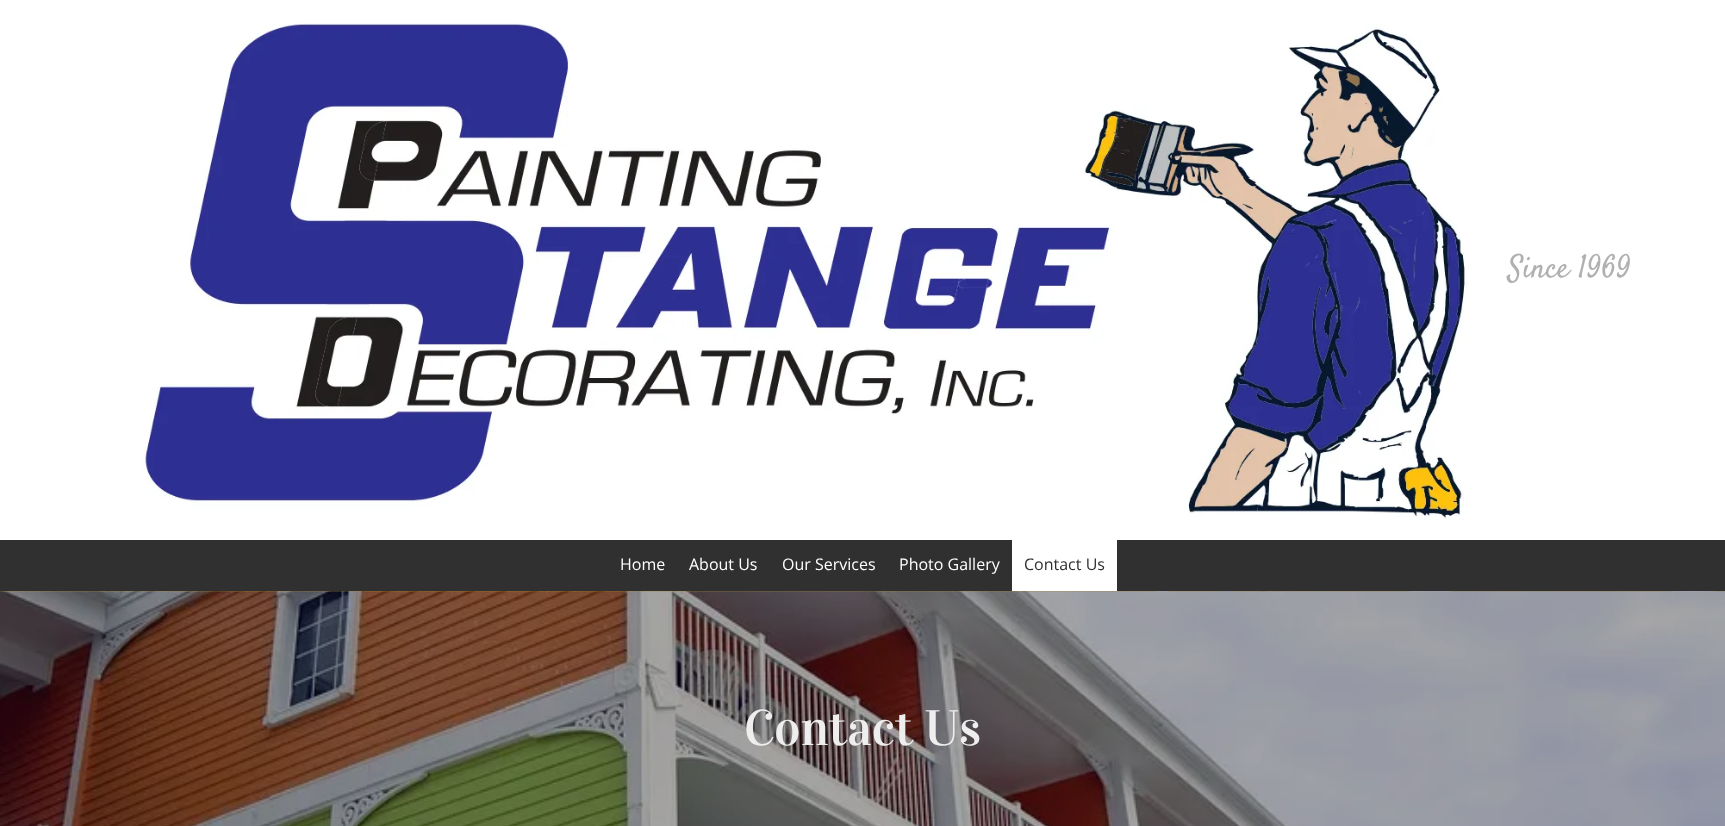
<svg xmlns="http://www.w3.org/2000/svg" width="1725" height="826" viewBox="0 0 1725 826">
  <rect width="100%" height="100%" fill="rgb(255,255,255)"/>
  <image x="140" y="23" width="1328" height="497" href="pic1.png"/>
  <text x="1508" y="277" font-family="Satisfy" font-size="31.5" fill="rgb(176,176,176)">Since 1969</text>
  <rect x="0" y="540" width="1725" height="51" fill="rgb(48,48,48)"/>
  <g font-family="Open Sans" font-size="16" fill="rgb(255,255,255)">
    <text x="620" y="570">Home</text>
    <text x="689" y="570">About Us</text>
    <text x="782" y="570">Our Services</text>
    <text x="899" y="570">Photo Gallery</text>
  </g>
  <rect x="1012" y="540" width="105" height="51" fill="rgb(255,255,255)"/>
  <text x="1024" y="570" font-family="Open Sans" font-size="16" fill="rgb(48,48,48)">Contact Us</text>
  <image x="0" y="591" width="1725" height="1" href="pic3.png"/>
  <image x="0" y="591" width="1725" height="235" href="pic2.png"/>
  <rect x="0" y="591" width="1725" height="235" fill="rgba(0,0,0,0.35)"/>
  <text x="744" y="745" font-family="Vidaloka" font-size="50" fill="rgb(238,238,238)">Contact Us</text>
</svg>
